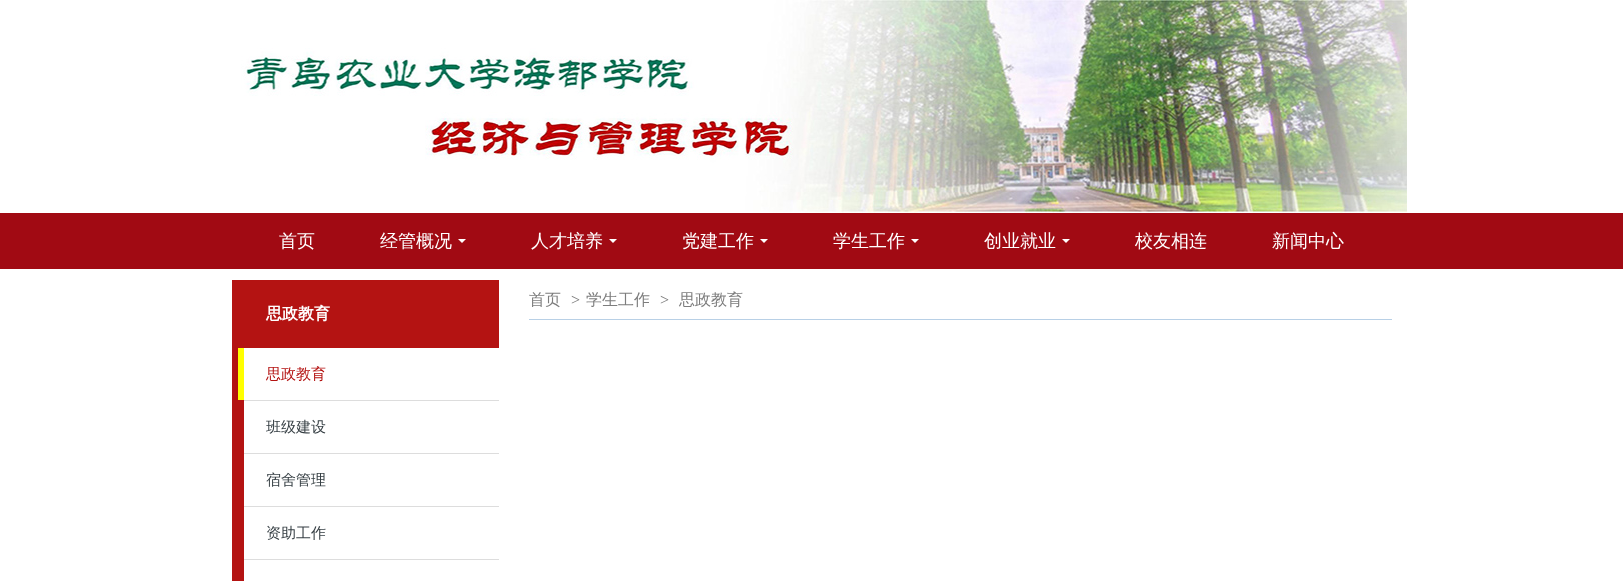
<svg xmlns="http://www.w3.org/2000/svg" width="1623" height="581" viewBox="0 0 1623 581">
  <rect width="100%" height="100%" fill="rgb(255,255,255)"/>
  <image x="217" y="0" width="1190" height="213" href="pic1.png"/>
  <rect x="0" y="213" width="1623" height="56" fill="rgb(161,10,19)"/>
  <g font-family="WenQuanYi Zen Hei" font-size="18" font-weight="500" fill="rgb(255,255,255)">
    <text x="279" y="247">首页</text>
    <text x="380" y="247">经管概况</text>
  </g>
  <path d="M458 239H466L462 243Z" fill="rgb(255,255,255)"/>
  <text x="531" y="247" font-family="WenQuanYi Zen Hei" font-size="18" font-weight="500" fill="rgb(255,255,255)">人才培养</text>
  <path d="M609 239H617L613 243Z" fill="rgb(255,255,255)"/>
  <text x="682" y="247" font-family="WenQuanYi Zen Hei" font-size="18" font-weight="500" fill="rgb(255,255,255)">党建工作</text>
  <path d="M760 239H768L764 243Z" fill="rgb(255,255,255)"/>
  <text x="833" y="247" font-family="WenQuanYi Zen Hei" font-size="18" font-weight="500" fill="rgb(255,255,255)">学生工作</text>
  <path d="M911 239H919L915 243Z" fill="rgb(255,255,255)"/>
  <text x="984" y="247" font-family="WenQuanYi Zen Hei" font-size="18" font-weight="500" fill="rgb(255,255,255)">创业就业</text>
  <path d="M1062 239H1070L1066 243Z" fill="rgb(255,255,255)"/>
  <g font-family="WenQuanYi Zen Hei" font-size="18" font-weight="500" fill="rgb(255,255,255)">
    <text x="1135" y="247">校友相连</text>
    <text x="1272" y="247">新闻中心</text>
  </g>
  <rect x="529" y="319" width="863" height="1" fill="rgb(184,208,230)"/>
  <text x="529" y="305" font-family="WenQuanYi Zen Hei" font-size="16" font-weight="500" fill="rgb(125,125,125)">首页</text>
  <text x="571" y="305" font-family="Liberation Serif" font-size="16" fill="rgb(125,125,125)">&gt;</text>
  <text x="586" y="305" font-family="WenQuanYi Zen Hei" font-size="16" font-weight="500" fill="rgb(125,125,125)">学生工作</text>
  <text x="660" y="305" font-family="Liberation Serif" font-size="16" fill="rgb(125,125,125)">&gt;</text>
  <text x="679" y="305" font-family="WenQuanYi Zen Hei" font-size="16" font-weight="500" fill="rgb(125,125,125)">思政教育</text>
  <rect x="232" y="280" width="12" height="301" fill="rgb(180,19,18)"/>
  <rect x="244" y="280" width="255" height="68" fill="rgb(180,19,18)"/>
  <text x="266" y="319" font-family="WenQuanYi Zen Hei" font-size="16" font-weight="bold" fill="rgb(255,255,255)">思政教育</text>
  <rect x="244" y="400" width="255" height="1" fill="rgb(221,221,221)"/>
  <rect x="238" y="348" width="6" height="52" fill="rgb(255,255,0)"/>
  <text x="266" y="379" font-family="WenQuanYi Zen Hei" font-size="15" font-weight="500" fill="rgb(180,19,18)">思政教育</text>
  <rect x="244" y="453" width="255" height="1" fill="rgb(221,221,221)"/>
  <text x="266" y="432" font-family="WenQuanYi Zen Hei" font-size="15" font-weight="500" fill="rgb(54,63,68)">班级建设</text>
  <rect x="244" y="506" width="255" height="1" fill="rgb(221,221,221)"/>
  <text x="266" y="485" font-family="WenQuanYi Zen Hei" font-size="15" font-weight="500" fill="rgb(54,63,68)">宿舍管理</text>
  <rect x="244" y="559" width="255" height="1" fill="rgb(221,221,221)"/>
  <text x="266" y="538" font-family="WenQuanYi Zen Hei" font-size="15" font-weight="500" fill="rgb(54,63,68)">资助工作</text>
</svg>
